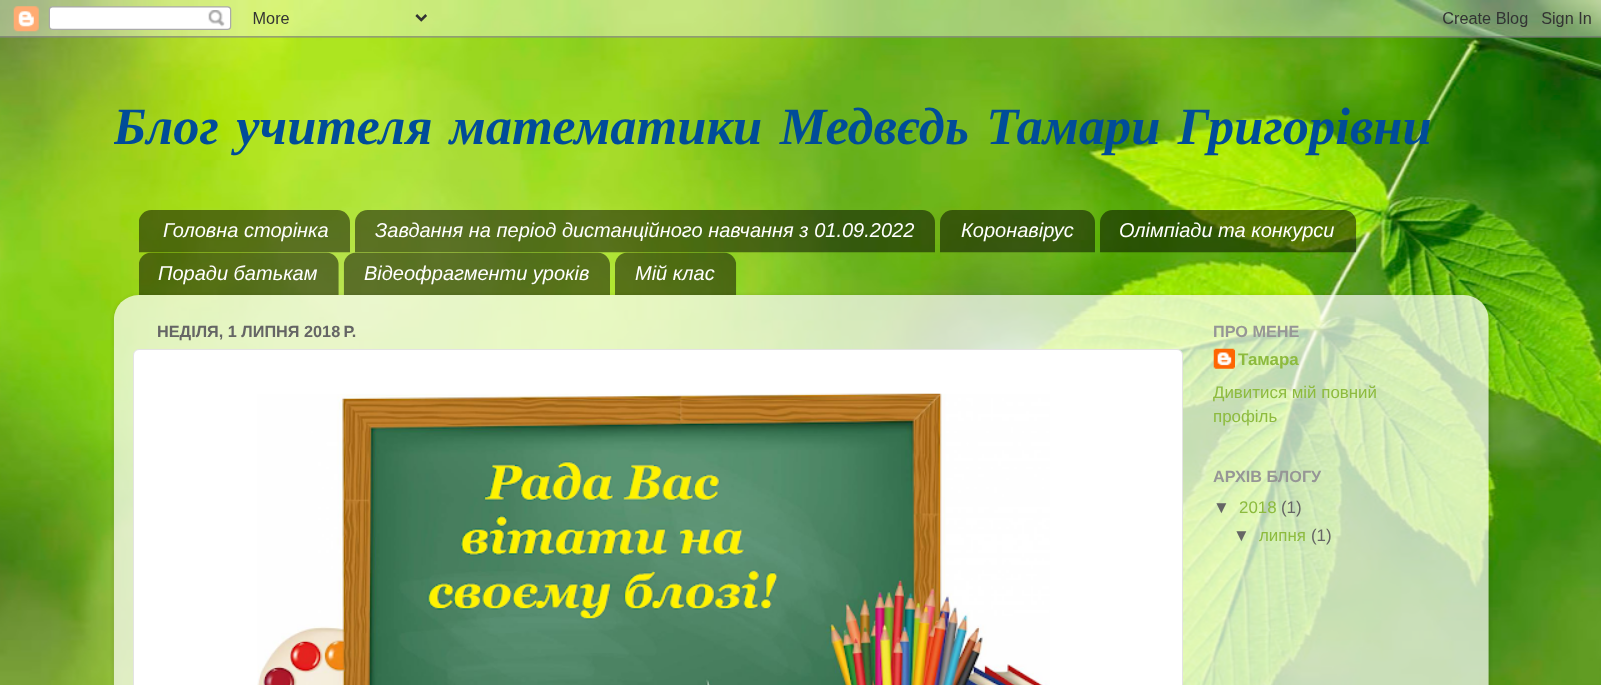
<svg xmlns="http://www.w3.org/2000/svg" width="1601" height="685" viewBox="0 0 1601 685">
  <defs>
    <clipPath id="clip1"><rect x="114" y="63" width="1375" height="138"/></clipPath>
    <clipPath id="clip2"><path d="M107 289H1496V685H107ZM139 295H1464C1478 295 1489 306 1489 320V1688H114V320C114 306 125 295 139 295Z" clip-rule="evenodd"/></clipPath>
  </defs>
  <rect width="100%" height="100%" fill="rgb(255,255,255)"/>
  <image x="0" y="0" width="1601" height="685" href="pic1.png"/>
  <image x="0" y="0" width="1601" height="38" href="pic2.png"/>
  <g clip-path="url(#clip1)">
    <text x="113" y="144" word-spacing="4.25" font-family="Liberation Serif" font-size="52.5" font-weight="bold" font-style="italic" fill="rgb(0,76,153)">Блог учителя математики Медвєдь Тамари Григорівни</text>
  </g>
  <image x="139" y="210" width="211" height="43" href="pic3.png"/>
  <text x="163" y="237" font-family="Liberation Sans" font-size="20" font-style="italic" fill="rgb(255,255,255)">Головна сторінка</text>
  <image x="355" y="210" width="580" height="43" href="pic4.png"/>
  <text x="375" y="237" font-family="Liberation Sans" font-size="20" font-style="italic" fill="rgb(255,255,255)">Завдання на період дистанційного навчання з 01.09.2022</text>
  <image x="940" y="210" width="155" height="43" href="pic5.png"/>
  <text x="961" y="237" font-family="Liberation Sans" font-size="20" font-style="italic" fill="rgb(255,255,255)">Коронавірус</text>
  <image x="1100" y="210" width="257" height="43" href="pic6.png"/>
  <text x="1119" y="237" font-family="Liberation Sans" font-size="20" font-style="italic" fill="rgb(255,255,255)">Олімпіади та конкурси</text>
  <image x="139" y="252" width="200" height="43" href="pic7.png"/>
  <text x="158" y="280" font-family="Liberation Sans" font-size="20" font-style="italic" fill="rgb(255,255,255)">Поради батькам</text>
  <image x="343" y="252" width="267" height="43" href="pic8.png"/>
  <text x="364" y="280" font-family="Liberation Sans" font-size="20" font-style="italic" fill="rgb(255,255,255)">Відеофрагменти уроків</text>
  <image x="615" y="252" width="122" height="43" href="pic9.png"/>
  <text x="635" y="280" font-family="Liberation Sans" font-size="20" font-style="italic" fill="rgb(255,255,255)">Мій клас</text>
  <g clip-path="url(#clip2)">
    <rect x="114" y="296" width="1375" height="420" rx="25" fill="rgba(0,0,0,0.15)" filter="blur(2px)"/>
  </g>
  <image x="113" y="295" width="1376" height="390" href="pic10.png"/>
  <text x="157" y="337" font-family="Liberation Sans" font-size="16.25" font-weight="bold" fill="rgb(101,101,101)">НЕДІЛЯ, 1 ЛИПНЯ 2018 Р.</text>
  <rect x="133.5" y="349.5" width="1049" height="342" rx="5.5" fill="rgb(255,255,255)" stroke="rgb(227,227,227)"/>
  <image x="257" y="393" width="793" height="292" href="pic11.png"/>
  <text x="1213" y="337" font-family="Liberation Sans" font-size="16.25" font-weight="bold" fill="rgb(150,150,150)">ПРО МЕНЕ</text>
  <image x="1213" y="348" width="22" height="21" href="pic12.png"/>
  <text x="1238" y="365" font-family="Liberation Sans" font-size="16.9" font-weight="bold" fill="rgb(141,187,62)">Тамара</text>
  <g font-family="Liberation Sans" font-size="16.9" fill="rgb(141,187,62)">
    <text>
      <tspan x="1213" y="398">Дивитися мій повний</tspan>
      <tspan x="1213" y="422">профіль</tspan>
    </text>
  </g>
  <text x="1213" y="482" font-family="Liberation Sans" font-size="16.25" font-weight="bold" fill="rgb(150,150,150)">АРХІВ БЛОГУ</text>
  <text x="1213" y="513" font-family="Liberation Sans" font-size="16.9" fill="rgb(101,101,101)">▼</text>
  <text x="1239" y="513" font-family="Liberation Sans" font-size="16.9" fill="rgb(141,187,62)">2018</text>
  <g font-family="Liberation Sans" font-size="16.9" fill="rgb(101,101,101)">
    <text x="1281" y="513">(1)</text>
    <text x="1233" y="541">▼</text>
  </g>
  <text x="1259" y="541" font-family="Liberation Sans" font-size="16.9" fill="rgb(141,187,62)">липня</text>
  <text x="1311" y="541" font-family="Liberation Sans" font-size="16.9" fill="rgb(101,101,101)">(1)</text>
</svg>
